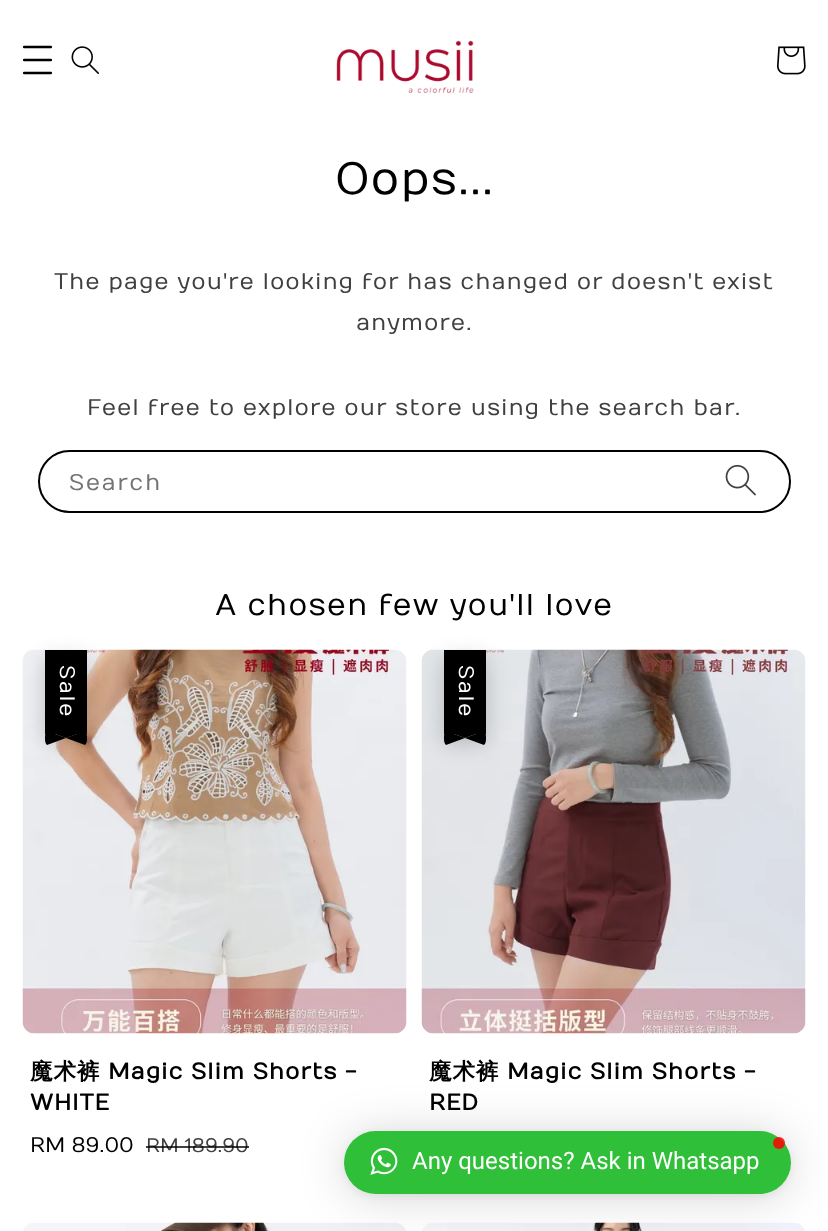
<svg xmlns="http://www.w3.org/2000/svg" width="828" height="1231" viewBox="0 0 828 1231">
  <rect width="100%" height="100%" fill="rgb(255,255,255)"/>
  <image x="23" y="45" width="30" height="30" href="pic1.png"/>
  <image x="71" y="46" width="28" height="28" href="pic2.png"/>
  <image x="336" y="40" width="138" height="53" href="pic3.png"/>
  <image x="777" y="46" width="29" height="29" href="pic4.png"/>
  <text x="335" y="194" font-family="Numans" font-size="45" letter-spacing="0.9" fill="rgb(0,0,0)">Oops...</text>
  <g font-family="Numans" font-size="22.5" letter-spacing="0.9" fill="rgb(64,64,64)">
    <text x="54" y="289">The page you're looking for has changed or doesn't exist</text>
    <text x="356" y="330">anymore.</text>
    <text x="87" y="415">Feel free to explore our store using the search bar.</text>
  </g>
  <rect x="39" y="451" width="751" height="61" rx="30.5" fill="none" stroke="rgb(0,0,0)" stroke-width="2"/>
  <text x="69" y="490" font-family="Numans" font-size="22.5" letter-spacing="1.5" fill="rgb(115,115,115)">Search</text>
  <image x="725" y="464" width="31" height="32" href="pic5.png"/>
  <text x="215" y="615" font-family="Numans" font-size="30" letter-spacing="0.9" fill="rgb(0,0,0)">A chosen few you'll love</text>
  <image x="22" y="649" width="385" height="385" href="pic6.png"/>
  <rect x="45" y="659" width="42" height="84" fill="rgba(0,0,0,0.2)" filter="blur(11px)"/>
  <rect x="45" y="650" width="42" height="84" fill="rgb(0,0,0)"/>
  <text x="60" y="665" transform="rotate(90 60 665)" font-family="Numans" font-size="21" letter-spacing="1.5" fill="rgb(255,255,255)">Sale</text>
  <path d="M66 738L47 731L48 730.5H84L85 731Z" fill="rgb(0,0,0)"/>
  <path d="M66 738L85 745C87 743 87 740.5 87 738C87 735.5 87 733 85 731ZM66 738L47 731C45 733 45 735.5 45 738C45 740.5 45 743 47 745Z" fill="rgb(0,0,0)"/>
  <text x="30" y="1079" font-family="WenQuanYi Zen Hei" font-size="22.5" font-weight="bold" letter-spacing="0.9" fill="rgb(0,0,0)">魔术裤</text>
  <g font-family="Numans" font-size="22.5" font-weight="bold" letter-spacing="0.9" fill="rgb(0,0,0)">
    <text x="108" y="1079">Magic Slim Shorts -</text>
    <text x="30" y="1110">WHITE</text>
  </g>
  <text x="30" y="1152" font-family="Numans" font-size="21" fill="rgb(0,0,0)">RM 89.00</text>
  <text x="146" y="1152" font-family="Numans" font-size="19.5" fill="rgb(64,64,64)">RM 189.90</text>
  <rect x="146" y="1146" width="103" height="2" fill="rgba(0,0,0,0.75)"/>
  <image x="421" y="649" width="385" height="385" href="pic7.png"/>
  <rect x="444" y="659" width="42" height="84" fill="rgba(0,0,0,0.2)" filter="blur(11px)"/>
  <rect x="444" y="650" width="42" height="84" fill="rgb(0,0,0)"/>
  <text x="459" y="665" transform="rotate(90 459 665)" font-family="Numans" font-size="21" letter-spacing="1.5" fill="rgb(255,255,255)">Sale</text>
  <path d="M465 738L446 731L446.5 730.5H483.5L484 731Z" fill="rgb(0,0,0)"/>
  <path d="M465 738L484 745C486 743 486 740.5 486 738C486 735.5 486 733 484 731ZM465 738L446 731C444 733 444 735.5 444 738C444 740.5 444 743 446 745Z" fill="rgb(0,0,0)"/>
  <text x="429" y="1079" font-family="WenQuanYi Zen Hei" font-size="22.5" font-weight="bold" letter-spacing="0.9" fill="rgb(0,0,0)">魔术裤</text>
  <g font-family="Numans" font-size="22.5" font-weight="bold" letter-spacing="0.9" fill="rgb(0,0,0)">
    <text x="507" y="1079">Magic Slim Shorts -</text>
    <text x="429" y="1110">RED</text>
  </g>
  <image x="23" y="1222" width="383" height="9" href="pic8.png"/>
  <image x="422" y="1222" width="383" height="9" href="pic9.png"/>
  <rect x="344" y="1134" width="447" height="63" rx="31.5" fill="rgba(0,0,0,0.16)" filter="blur(24px)"/>
  <rect x="344" y="1133" width="447" height="63" rx="31.5" fill="rgba(0,0,0,0.06)" filter="blur(4.5px)"/>
  <rect x="344" y="1131" width="447" height="63" rx="31.5" fill="rgb(48,191,57)"/>
  <circle cx="779" cy="1143" r="6" fill="rgba(255,0,0,0.85)"/>
  <image x="370" y="1147" width="28" height="28" href="pic10.png"/>
  <text x="412" y="1169" font-family="Roboto" font-size="24" fill="rgb(255,255,255)">Any questions? Ask in Whatsapp</text>
</svg>
